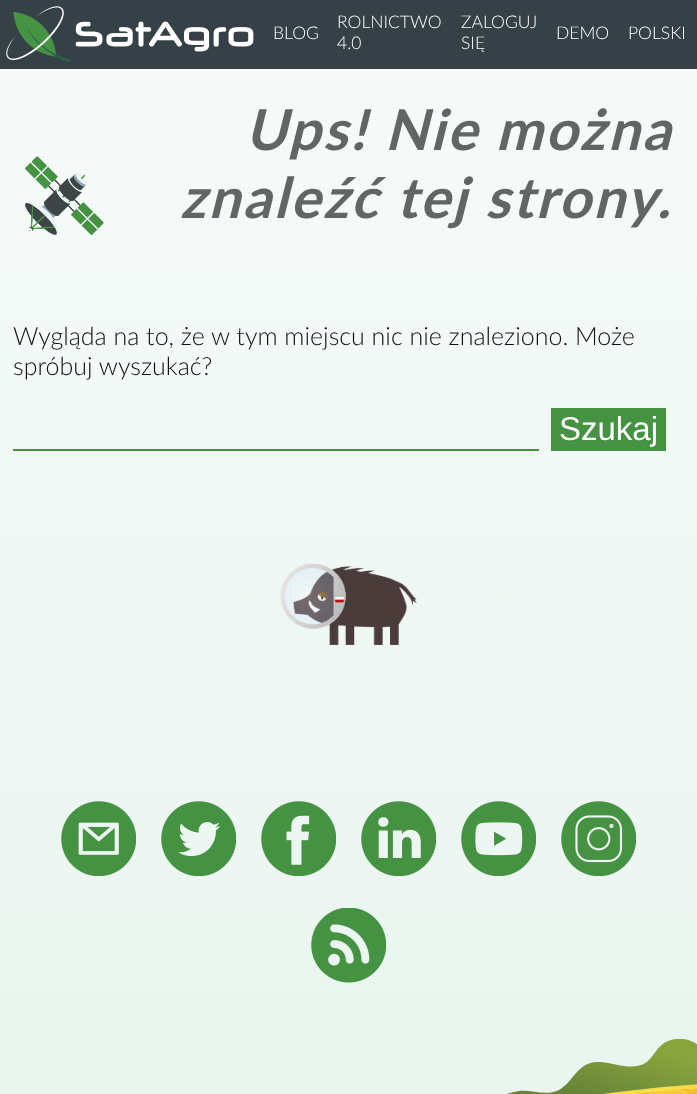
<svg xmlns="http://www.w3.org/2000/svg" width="697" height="1094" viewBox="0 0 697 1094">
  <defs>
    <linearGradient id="g1" gradientUnits="userSpaceOnUse" x1="349" y1="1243" x2="349" y2="-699"><stop offset="0" stop-color="rgb(232,244,238)"/><stop offset="1" stop-color="rgb(255,255,255)"/></linearGradient>
  </defs>
  <rect width="100%" height="100%" fill="rgb(255,255,255)"/>
  <rect x="0" y="0" width="697" height="69" fill="rgb(54,65,71)"/>
  <image x="6" y="6" width="248" height="57" href="pic1.png"/>
  <g font-family="Lato" font-size="17.5" font-weight="300" fill="rgb(255,255,255)">
    <text x="273" y="39">BLOG</text>
    <text>
      <tspan x="337" y="28">ROLNICTWO</tspan>
      <tspan x="337" y="49">4.0</tspan>
    </text>
    <text>
      <tspan x="461" y="28">ZALOGUJ</tspan>
      <tspan x="461" y="49">SIĘ</tspan>
    </text>
    <text x="556" y="39">DEMO</text>
    <text x="628" y="39">POLSKI</text>
  </g>
  <rect x="0" y="69" width="697" height="1025" fill="url(#g1)"/>
  <image x="61" y="801" width="75" height="75" href="pic2.png"/>
  <image x="161" y="801" width="75" height="75" href="pic3.png"/>
  <image x="261" y="801" width="75" height="75" href="pic4.png"/>
  <image x="361" y="801" width="75" height="75" href="pic5.png"/>
  <image x="461" y="801" width="75" height="75" href="pic6.png"/>
  <image x="561" y="801" width="75" height="75" href="pic7.png"/>
  <image x="311" y="908" width="75" height="75" href="pic8.png"/>
  <image x="507" y="1039" width="190" height="55" href="pic9.png"/>
  <image x="25" y="156" width="79" height="79" href="pic10.png"/>
  <g font-family="Lato" font-size="56.25" font-weight="bold" font-style="italic" letter-spacing="2.5" fill="rgb(99,100,102)">
    <text x="245" y="150">Ups! Nie można</text>
    <text x="180" y="218">znaleźć tej strony.</text>
  </g>
  <g font-family="Lato" font-size="25" font-weight="300" fill="rgb(17,17,17)">
    <text>
      <tspan x="13" y="345">Wygląda na to, że w tym miejscu nic nie znaleziono. Może</tspan>
      <tspan x="13" y="375">spróbuj wyszukać?</tspan>
    </text>
  </g>
  <rect x="551" y="408" width="115" height="43" fill="rgb(69,146,67)"/>
  <text x="559" y="440" font-family="Liberation Sans" font-size="33" fill="rgb(255,255,255)">Szukaj</text>
  <rect x="13" y="449" width="526" height="2" fill="rgb(69,146,67)"/>
  <image x="280" y="563" width="137" height="82" href="pic11.png"/>
</svg>
